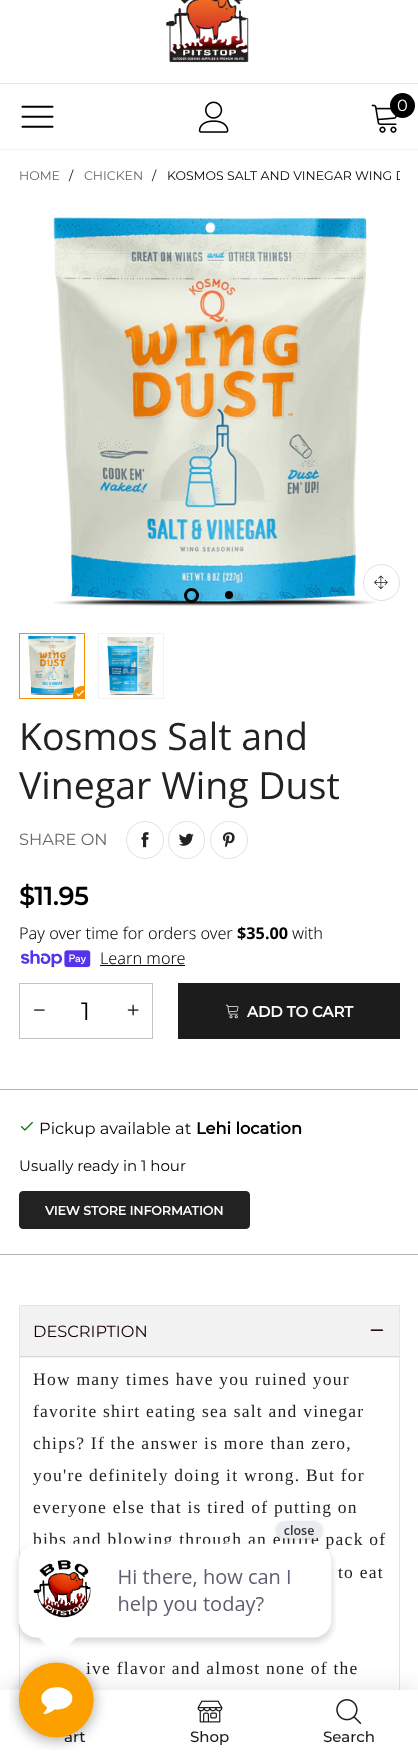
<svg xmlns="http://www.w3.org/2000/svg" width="418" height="1758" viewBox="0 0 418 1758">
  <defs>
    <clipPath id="clip1"><rect x="19" y="169" width="381" height="14"/></clipPath>
  </defs>
  <rect width="100%" height="100%" fill="rgb(255,255,255)"/>
  <rect x="0" y="149" width="418" height="1" fill="rgb(242,242,242)"/>
  <image x="166" y="0" width="83" height="63" href="pic1.png"/>
  <rect x="0" y="83" width="418" height="1" fill="rgb(230,230,230)"/>
  <image x="21" y="105" width="33" height="23" href="pic2.png"/>
  <image x="198" y="101" width="31" height="32" href="pic3.png"/>
  <image x="371" y="104" width="26" height="29" href="pic4.png"/>
  <circle cx="402.5" cy="105.5" r="12.5" fill="rgb(0,0,0)"/>
  <text x="397" y="111" font-family="Montserrat" font-size="16.25" font-weight="100" fill="rgb(255,255,255)">0</text>
  <text x="19" y="180" font-family="Montserrat" font-size="12.5" font-weight="100" fill="rgb(102,102,102)">HOME</text>
  <text x="69" y="180" font-family="Montserrat" font-size="12.5" font-weight="100" fill="rgb(0,0,0)">/</text>
  <text x="84" y="180" font-family="Montserrat" font-size="12.5" font-weight="100" fill="rgb(102,102,102)">CHICKEN</text>
  <text x="152" y="180" font-family="Montserrat" font-size="12.5" font-weight="100" fill="rgb(0,0,0)">/</text>
  <g clip-path="url(#clip1)">
    <text x="167" y="180" font-family="Montserrat" font-size="12.5" font-weight="100" fill="rgb(0,0,0)">KOSMOS SALT AND VINEGAR WING D</text>
  </g>
  <image x="53" y="217" width="323" height="389" href="pic5.png"/>
  <circle cx="191.5" cy="595.5" r="6" fill="none" stroke="rgb(0,0,0)" stroke-width="3"/>
  <circle cx="229" cy="595" r="4" fill="rgb(0,0,0)"/>
  <circle cx="381.5" cy="582.5" r="18" fill="none" stroke="rgb(225,225,225)"/>
  <image x="374" y="575" width="14" height="15" href="pic6.png"/>
  <rect x="19.5" y="633.5" width="65" height="65" fill="none" stroke="rgb(245,144,1)"/>
  <image x="28" y="636" width="48" height="59" href="pic7.png"/>
  <path d="M82 686H85V699H73V695C73 690 77 686 82 686Z" fill="rgb(245,144,1)"/>
  <path d="M78 695.5L83 690L84 691L78.5 696.5Z" fill="rgb(255,255,255)"/>
  <path d="M76 693.5L77 693L79.5 695.5L78.5 696.5Z" fill="rgb(255,255,255)"/>
  <rect x="98.5" y="633.5" width="65" height="65" fill="none" stroke="rgb(242,242,242)"/>
  <image x="107" y="637" width="48" height="58" href="pic8.png"/>
  <g font-family="Open Sans" font-size="37.5" fill="rgb(34,34,34)">
    <text>
      <tspan x="19" y="750">Kosmos Salt and</tspan>
      <tspan x="19" y="799">Vinegar Wing Dust</tspan>
    </text>
  </g>
  <text x="19" y="845" font-family="Montserrat" font-size="16.25" font-weight="100" fill="rgb(102,102,102)">SHARE ON</text>
  <circle cx="145" cy="840" r="18.5" fill="none" stroke="rgb(225,225,225)"/>
  <image x="141" y="832" width="8" height="16" href="pic9.png"/>
  <rect x="168.5" y="821.5" width="36" height="37" rx="18" fill="none" stroke="rgb(225,225,225)"/>
  <image x="179" y="833" width="15" height="13" href="pic10.png"/>
  <circle cx="229" cy="840" r="18.5" fill="none" stroke="rgb(225,225,225)"/>
  <image x="222" y="832" width="13" height="16" href="pic11.png"/>
  <text x="19" y="905" font-family="Montserrat" font-size="25" font-weight="bold" fill="rgb(0,0,0)">$11.95</text>
  <text x="19" y="939" font-family="Noto Sans" font-size="16.25" font-weight="300" fill="rgb(0,0,0)">Pay over time for orders over</text>
  <text x="237" y="939" font-family="Noto Sans" font-size="16.25" font-weight="bold" fill="rgb(0,0,0)">$35.00</text>
  <text x="292" y="939" font-family="Noto Sans" font-size="16.25" font-weight="300" fill="rgb(0,0,0)">with</text>
  <image x="21" y="950" width="70" height="18" href="pic12.png"/>
  <text x="100" y="964" font-family="Noto Sans" font-size="16.25" font-weight="300" fill="rgb(0,0,0)">Learn more</text>
  <rect x="100" y="965" width="85" height="1" fill="rgb(0,0,0)"/>
  <rect x="19.5" y="983.5" width="133" height="55" fill="none" stroke="rgb(195,195,195)"/>
  <image x="34" y="1009" width="11" height="2" href="pic13.png"/>
  <text x="81" y="1020" font-family="Montserrat" font-size="25" font-weight="100" fill="rgb(0,0,0)">1</text>
  <image x="127" y="1004" width="12" height="12" href="pic14.png"/>
  <rect x="178" y="983" width="222" height="56" fill="rgb(28,28,28)"/>
  <image x="225" y="1004" width="14" height="15" href="pic15.png"/>
  <text x="247" y="1017" font-family="Montserrat" font-size="15" font-weight="bold" fill="rgb(255,255,255)">ADD TO CART</text>
  <rect x="0" y="1089" width="418" height="1" fill="rgb(179,179,179)"/>
  <image x="20" y="1121" width="13" height="10" href="pic16.png"/>
  <text x="39" y="1134" font-family="Montserrat" font-size="16.25" font-weight="100" fill="rgb(0,0,0)">Pickup available at</text>
  <text x="196" y="1134" font-family="Montserrat" font-size="16.25" font-weight="bold" fill="rgb(0,0,0)">Lehi location</text>
  <text x="19" y="1171" font-family="Montserrat" font-size="15" font-weight="100" fill="rgb(0,0,0)">Usually ready in 1 hour</text>
  <rect x="19.5" y="1191.5" width="230" height="37" rx="3.5" fill="rgb(34,34,34)" stroke="rgb(34,34,34)"/>
  <text x="45" y="1215" font-family="Montserrat" font-size="12.5" font-weight="bold" fill="rgb(255,255,255)">VIEW STORE INFORMATION</text>
  <rect x="0" y="1254" width="418" height="1" fill="rgb(179,179,179)"/>
  <path d="M19 1305H400L399 1306H20Z" fill="rgb(230,230,230)"/>
  <path d="M400 1305V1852H399V1306Z" fill="rgba(0,0,0,0.1)"/>
  <path d="M19 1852V1305L20 1306V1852Z" fill="rgba(0,0,0,0.1)"/>
  <rect x="20" y="1306" width="379" height="52" fill="rgb(242,242,242)"/>
  <rect x="20" y="1356" width="379" height="1" fill="rgb(218,218,218)"/>
  <text x="33" y="1337" font-family="Montserrat" font-size="16.25" font-weight="100" fill="rgb(22,1,1)">DESCRIPTION</text>
  <image x="370" y="1329" width="14" height="2" href="pic17.png"/>
  <g font-family="Liberation Serif" font-size="17.5" letter-spacing="1.25" fill="rgb(34,34,34)">
    <text>
      <tspan x="33" y="1385">How many times have you ruined your</tspan>
      <tspan x="33" y="1417">favorite shirt eating sea salt and vinegar</tspan>
      <tspan x="33" y="1449">chips? If the answer is more than zero,</tspan>
      <tspan x="33" y="1481">you're definitely doing it wrong. But for</tspan>
      <tspan x="33" y="1513">everyone else that is tired of putting on</tspan>
      <tspan x="33" y="1545">bibs and blowing through an entire pack of</tspan>
    </text>
    <text x="338" y="1578">to eat</text>
    <text x="86" y="1674">ive flavor and almost none of the</text>
  </g>
  <rect x="0" y="1689" width="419" height="69" fill="rgba(0,0,0,0.1)" filter="blur(12px)"/>
  <rect x="0" y="1690" width="418" height="68" fill="rgb(255,255,255)"/>
  <text x="64" y="1742" font-family="Montserrat" font-size="15" font-weight="500" fill="rgb(28,28,28)">art</text>
  <image x="197" y="1700" width="26" height="23" href="pic19.png"/>
  <g font-family="Montserrat" font-size="15" font-weight="500" fill="rgb(28,28,28)">
    <text x="190" y="1742">Shop</text>
    <text x="323" y="1742">Search</text>
  </g>
  <image x="9" y="1520" width="327" height="230" href="pic18.png"/>
  <image x="336" y="1699" width="26" height="25" href="pic20.png"/>
</svg>
